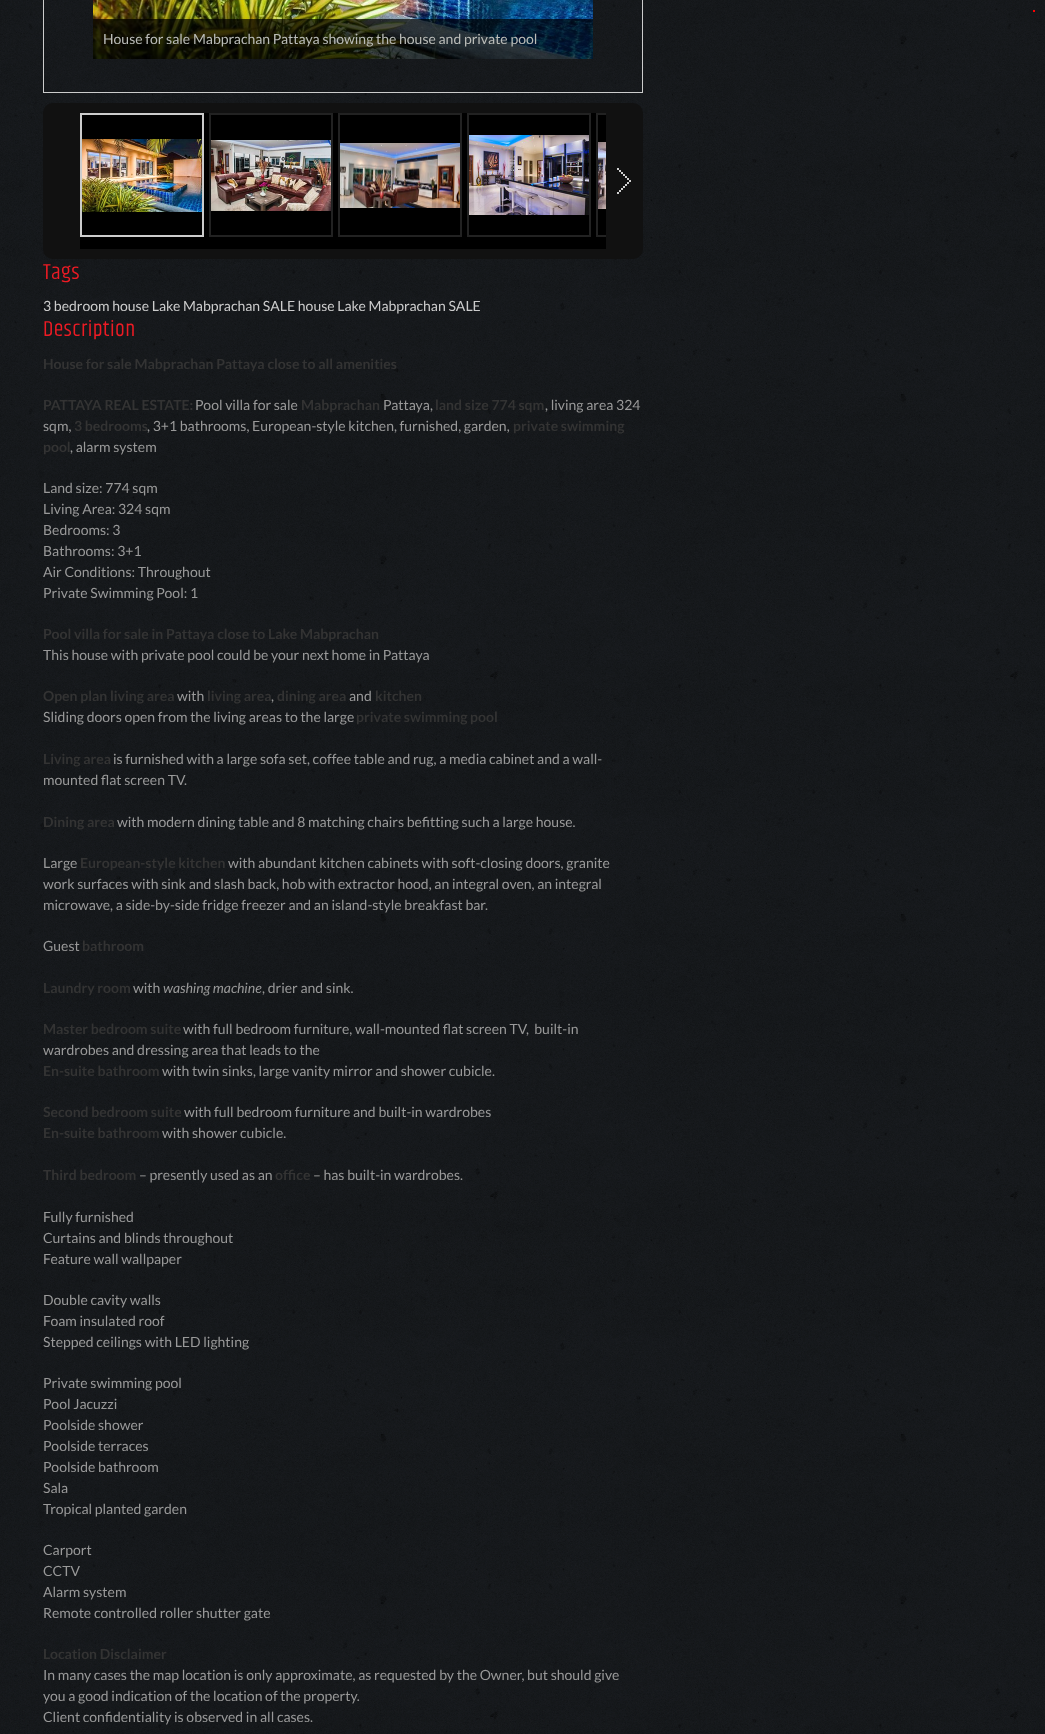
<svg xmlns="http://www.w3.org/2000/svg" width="1045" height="1734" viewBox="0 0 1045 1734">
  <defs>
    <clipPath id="clip1"><rect x="80" y="113" width="526" height="136"/></clipPath>
  </defs>
  <rect width="100%" height="100%" fill="rgb(255,255,255)"/>
  <image x="0" y="0" width="1045" height="1734" href="pic1.png"/>
  <rect x="1033" y="10" width="2" height="2" fill="rgb(255,0,0)"/>
  <rect x="43.5" y="-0.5" width="599" height="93" fill="none" stroke="rgb(204,204,204)"/>
  <image x="93" y="0" width="500" height="59" href="pic2.png"/>
  <rect x="93" y="19" width="500" height="40" fill="rgba(0,0,0,0.7)"/>
  <text x="103" y="44" font-family="Lato" font-size="14" fill="rgb(186,188,184)">House for sale Mabprachan Pattaya showing the house and private pool</text>
  <rect x="43" y="103" width="600" height="156" rx="10" fill="rgb(17,17,17)"/>
  <rect x="80" y="113" width="526" height="136" fill="rgb(0,0,0)"/>
  <rect x="81" y="114" width="122" height="122" fill="none" stroke="rgb(204,204,204)" stroke-width="2"/>
  <image x="82" y="139" width="120" height="73" href="pic3.png"/>
  <rect x="210" y="114" width="122" height="122" fill="none" stroke="rgb(34,34,34)" stroke-width="2"/>
  <image x="211" y="140" width="120" height="71" href="pic4.png"/>
  <rect x="339" y="114" width="122" height="122" fill="none" stroke="rgb(34,34,34)" stroke-width="2"/>
  <image x="340" y="143" width="120" height="65" href="pic5.png"/>
  <rect x="468" y="114" width="122" height="122" fill="none" stroke="rgb(34,34,34)" stroke-width="2"/>
  <image x="469" y="135" width="120" height="80" href="pic6.png"/>
  <g clip-path="url(#clip1)">
    <rect x="597" y="114" width="122" height="122" fill="none" stroke="rgb(34,34,34)" stroke-width="2"/>
  </g>
  <image x="598" y="142" width="8" height="67" href="pic7.png"/>
  <image x="617" y="168" width="14" height="26" href="pic8.png"/>
  <text x="43" y="279" font-family="Khand" font-size="22" letter-spacing="0.5" fill="rgb(237,27,36)">Tags</text>
  <text x="43" y="311" font-family="Lato" font-size="14" fill="rgb(204,204,204)">3 bedroom house Lake Mabprachan SALE house Lake Mabprachan SALE</text>
  <text x="43" y="336" font-family="Khand" font-size="22" letter-spacing="0.5" fill="rgb(237,27,36)">Description</text>
  <g font-family="Lato" font-size="14" font-weight="bold" fill="rgb(51,51,51)">
    <text x="43" y="369">House for sale Mabprachan Pattaya close to all amenities</text>
    <text x="43" y="410">PATTAYA REAL ESTATE:</text>
  </g>
  <text x="195" y="410" font-family="Lato" font-size="14" fill="rgb(153,153,153)">Pool villa for sale</text>
  <text x="301" y="410" font-family="Lato" font-size="14" font-weight="bold" fill="rgb(51,51,51)">Mabprachan</text>
  <text x="383" y="410" font-family="Lato" font-size="14" fill="rgb(153,153,153)">Pattaya,</text>
  <text x="435" y="410" font-family="Lato" font-size="14" font-weight="bold" fill="rgb(51,51,51)">land size 774 sqm</text>
  <g font-family="Lato" font-size="14" fill="rgb(153,153,153)">
    <text x="545" y="410">, living area 324</text>
    <text x="43" y="431">sqm,</text>
  </g>
  <text x="74" y="431" font-family="Lato" font-size="14" font-weight="bold" fill="rgb(51,51,51)">3 bedrooms</text>
  <text x="147" y="431" font-family="Lato" font-size="14" fill="rgb(153,153,153)">, 3+1 bathrooms, European-style kitchen, furnished, garden,</text>
  <g font-family="Lato" font-size="14" font-weight="bold" fill="rgb(51,51,51)">
    <text x="513" y="431">private swimming</text>
    <text x="43" y="452">pool</text>
  </g>
  <g font-family="Lato" font-size="14" fill="rgb(153,153,153)">
    <text x="70" y="452">, alarm system</text>
    <text>
      <tspan x="43" y="493">Land size: 774 sqm</tspan>
      <tspan x="43" y="514">Living Area: 324 sqm</tspan>
      <tspan x="43" y="535">Bedrooms: 3</tspan>
      <tspan x="43" y="556">Bathrooms: 3+1</tspan>
      <tspan x="43" y="577">Air Conditions: Throughout</tspan>
      <tspan x="43" y="598">Private Swimming Pool: 1</tspan>
    </text>
  </g>
  <text x="43" y="639" font-family="Lato" font-size="14" font-weight="bold" fill="rgb(51,51,51)">Pool villa for sale in Pattaya close to Lake Mabprachan</text>
  <text x="43" y="660" font-family="Lato" font-size="14" fill="rgb(153,153,153)">This house with private pool could be your next home in Pattaya</text>
  <text x="43" y="701" font-family="Lato" font-size="14" font-weight="bold" fill="rgb(51,51,51)">Open plan living area</text>
  <text x="177" y="701" font-family="Lato" font-size="14" fill="rgb(153,153,153)">with</text>
  <text x="207" y="701" font-family="Lato" font-size="14" font-weight="bold" fill="rgb(51,51,51)">living area</text>
  <text x="271" y="701" font-family="Lato" font-size="14" fill="rgb(153,153,153)">,</text>
  <text x="277" y="701" font-family="Lato" font-size="14" font-weight="bold" fill="rgb(51,51,51)">dining area</text>
  <text x="349" y="701" font-family="Lato" font-size="14" fill="rgb(153,153,153)">and</text>
  <text x="375" y="701" font-family="Lato" font-size="14" font-weight="bold" fill="rgb(51,51,51)">kitchen</text>
  <text x="43" y="722" font-family="Lato" font-size="14" fill="rgb(153,153,153)">Sliding doors open from the living areas to the large</text>
  <g font-family="Lato" font-size="14" font-weight="bold" fill="rgb(51,51,51)">
    <text x="356" y="722">private swimming pool</text>
    <text x="43" y="764">Living area</text>
  </g>
  <g font-family="Lato" font-size="14" fill="rgb(153,153,153)">
    <text x="113" y="764">is furnished with a large sofa set, coffee table and rug, a media cabinet and a wall-</text>
    <text x="43" y="785">mounted flat screen TV.</text>
  </g>
  <text x="43" y="827" font-family="Lato" font-size="14" font-weight="bold" fill="rgb(51,51,51)">Dining area</text>
  <g font-family="Lato" font-size="14" fill="rgb(153,153,153)">
    <text x="117" y="827">with modern dining table and 8 matching chairs befitting such a large house.</text>
    <text x="43" y="868">Large</text>
  </g>
  <text x="80" y="868" font-family="Lato" font-size="14" font-weight="bold" fill="rgb(51,51,51)">European-style kitchen</text>
  <g font-family="Lato" font-size="14" fill="rgb(153,153,153)">
    <text x="228" y="868">with abundant kitchen cabinets with soft-closing doors, granite</text>
    <text>
      <tspan x="43" y="889">work surfaces with sink and slash back, hob with extractor hood, an integral oven, an integral</tspan>
      <tspan x="43" y="910">microwave, a side-by-side fridge freezer and an island-style breakfast bar.</tspan>
    </text>
    <text x="43" y="951">Guest</text>
  </g>
  <g font-family="Lato" font-size="14" font-weight="bold" fill="rgb(51,51,51)">
    <text x="82" y="951">bathroom</text>
    <text x="43" y="993">Laundry room</text>
  </g>
  <text x="133" y="993" font-family="Lato" font-size="14" fill="rgb(153,153,153)">with</text>
  <text x="163" y="993" font-family="Lato" font-size="14" font-style="italic" fill="rgb(153,153,153)">washing machine</text>
  <text x="262" y="993" font-family="Lato" font-size="14" fill="rgb(153,153,153)">, drier and sink.</text>
  <text x="43" y="1034" font-family="Lato" font-size="14" font-weight="bold" fill="rgb(51,51,51)">Master bedroom suite</text>
  <g font-family="Lato" font-size="14" fill="rgb(153,153,153)">
    <text x="183" y="1034" xml:space="preserve">with full bedroom furniture, wall-mounted flat screen TV,  built-in</text>
    <text x="43" y="1055">wardrobes and dressing area that leads to the</text>
  </g>
  <text x="43" y="1076" font-family="Lato" font-size="14" font-weight="bold" fill="rgb(51,51,51)">En-suite bathroom</text>
  <text x="162" y="1076" font-family="Lato" font-size="14" fill="rgb(153,153,153)">with twin sinks, large vanity mirror and shower cubicle.</text>
  <text x="43" y="1117" font-family="Lato" font-size="14" font-weight="bold" fill="rgb(51,51,51)">Second bedroom suite</text>
  <text x="184" y="1117" font-family="Lato" font-size="14" fill="rgb(153,153,153)">with full bedroom furniture and built-in wardrobes</text>
  <text x="43" y="1138" font-family="Lato" font-size="14" font-weight="bold" fill="rgb(51,51,51)">En-suite bathroom</text>
  <text x="162" y="1138" font-family="Lato" font-size="14" fill="rgb(153,153,153)">with shower cubicle.</text>
  <text x="43" y="1180" font-family="Lato" font-size="14" font-weight="bold" fill="rgb(51,51,51)">Third bedroom</text>
  <text x="139" y="1180" font-family="Lato" font-size="14" fill="rgb(153,153,153)">– presently used as an</text>
  <text x="275" y="1180" font-family="Lato" font-size="14" font-weight="bold" fill="rgb(51,51,51)">office</text>
  <g font-family="Lato" font-size="14" fill="rgb(153,153,153)">
    <text x="313" y="1180">– has built-in wardrobes.</text>
    <text>
      <tspan x="43" y="1222">Fully furnished</tspan>
      <tspan x="43" y="1243">Curtains and blinds throughout</tspan>
      <tspan x="43" y="1264">Feature wall wallpaper</tspan>
    </text>
    <text>
      <tspan x="43" y="1305">Double cavity walls</tspan>
      <tspan x="43" y="1326">Foam insulated roof</tspan>
      <tspan x="43" y="1347">Stepped ceilings with LED lighting</tspan>
    </text>
    <text>
      <tspan x="43" y="1388">Private swimming pool</tspan>
      <tspan x="43" y="1409">Pool Jacuzzi</tspan>
      <tspan x="43" y="1430">Poolside shower</tspan>
      <tspan x="43" y="1451">Poolside terraces</tspan>
      <tspan x="43" y="1472">Poolside bathroom</tspan>
      <tspan x="43" y="1493">Sala</tspan>
      <tspan x="43" y="1514">Tropical planted garden</tspan>
    </text>
    <text>
      <tspan x="43" y="1555">Carport</tspan>
      <tspan x="43" y="1576">CCTV</tspan>
      <tspan x="43" y="1597">Alarm system</tspan>
      <tspan x="43" y="1618">Remote controlled roller shutter gate</tspan>
    </text>
  </g>
  <text x="43" y="1659" font-family="Lato" font-size="14" font-weight="bold" fill="rgb(51,51,51)">Location Disclaimer</text>
  <g font-family="Lato" font-size="14" fill="rgb(153,153,153)">
    <text>
      <tspan x="43" y="1680">In many cases the map location is only approximate, as requested by the Owner, but should give</tspan>
      <tspan x="43" y="1701">you a good indication of the location of the property.</tspan>
      <tspan x="43" y="1722">Client confidentiality is observed in all cases.</tspan>
    </text>
  </g>
</svg>
